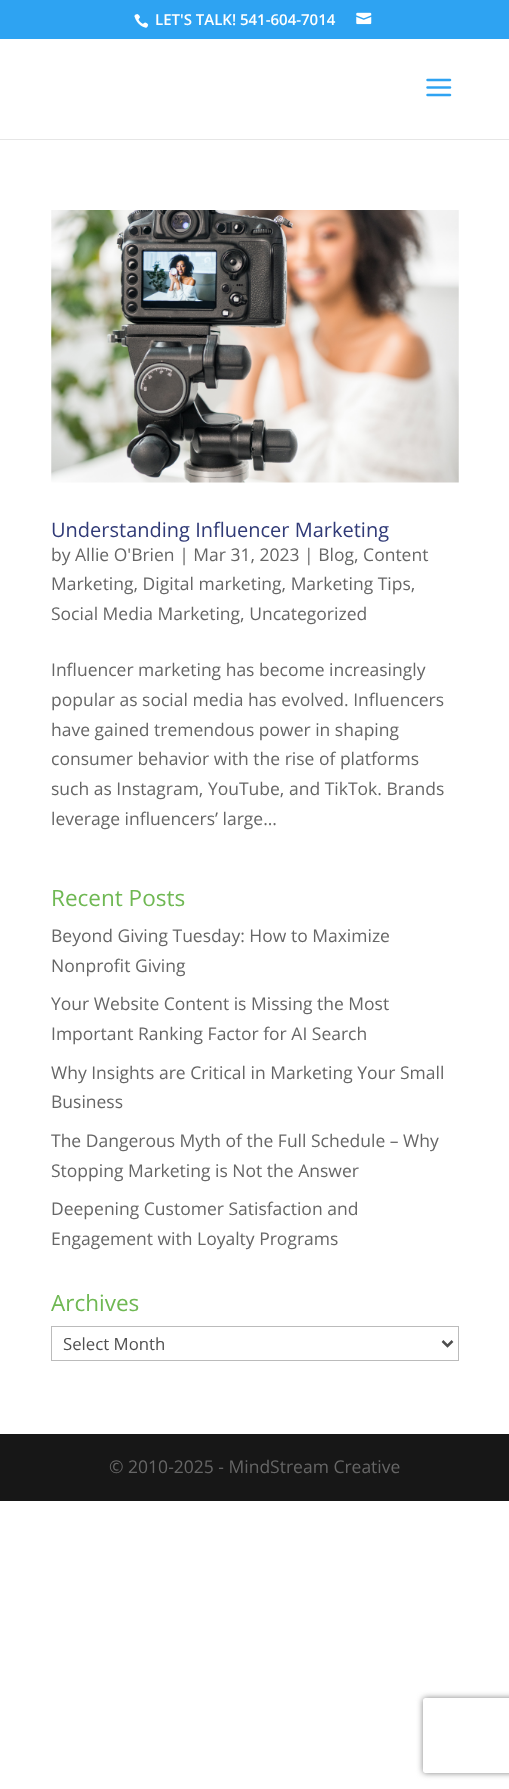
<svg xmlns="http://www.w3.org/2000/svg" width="509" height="1789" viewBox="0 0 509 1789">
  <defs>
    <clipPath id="clip1"><path d="M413 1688H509V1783H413ZM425.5 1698H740.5C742 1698 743 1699 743 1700.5V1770.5C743 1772 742 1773 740.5 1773H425.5C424 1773 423 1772 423 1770.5V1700.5C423 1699 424 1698 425.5 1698Z" clip-rule="evenodd"/></clipPath>
  </defs>
  <rect width="100%" height="100%" fill="rgb(255,255,255)"/>
  <rect x="0" y="0" width="509" height="39" fill="rgb(46,163,242)"/>
  <image x="134" y="14" width="15" height="14" href="pic1.png"/>
  <text x="155" y="25" font-family="Open Sans" font-size="15" font-weight="600" fill="rgb(255,255,255)">LET'S TALK! 541-604-7014</text>
  <image x="356" y="12" width="16" height="13" href="pic2.png"/>
  <rect x="0" y="139" width="509" height="1" fill="rgb(230,230,230)"/>
  <image x="426" y="78" width="26" height="19" href="pic3.png"/>
  <image x="51" y="210" width="408" height="273" href="pic4.png"/>
  <text x="51" y="537" font-family="Open Sans" font-size="20" fill="rgb(48,58,119)">Understanding Influencer Marketing</text>
  <g font-family="Open Sans" font-size="17.5" fill="rgb(102,102,102)">
    <text>
      <tspan x="51" y="561">by Allie O'Brien | Mar 31, 2023 | Blog, Content</tspan>
      <tspan x="51" y="590">Marketing, Digital marketing, Marketing Tips,</tspan>
      <tspan x="51" y="620">Social Media Marketing, Uncategorized</tspan>
    </text>
    <text>
      <tspan x="51" y="676">Influencer marketing has become increasingly</tspan>
      <tspan x="51" y="706">popular as social media has evolved. Influencers</tspan>
      <tspan x="51" y="736">have gained tremendous power in shaping</tspan>
      <tspan x="51" y="765">consumer behavior with the rise of platforms</tspan>
      <tspan x="51" y="795">such as Instagram, YouTube, and TikTok. Brands</tspan>
      <tspan x="51" y="825">leverage influencers’ large...</tspan>
    </text>
  </g>
  <text x="51" y="906" font-family="Open Sans" font-size="22.5" fill="rgb(111,184,83)">Recent Posts</text>
  <g font-family="Open Sans" font-size="17.5" fill="rgb(102,102,102)">
    <text>
      <tspan x="51" y="942">Beyond Giving Tuesday: How to Maximize</tspan>
      <tspan x="51" y="972">Nonprofit Giving</tspan>
    </text>
    <text>
      <tspan x="51" y="1010">Your Website Content is Missing the Most</tspan>
      <tspan x="51" y="1040">Important Ranking Factor for AI Search</tspan>
    </text>
    <text>
      <tspan x="51" y="1079">Why Insights are Critical in Marketing Your Small</tspan>
      <tspan x="51" y="1108">Business</tspan>
    </text>
    <text>
      <tspan x="51" y="1147">The Dangerous Myth of the Full Schedule – Why</tspan>
      <tspan x="51" y="1177">Stopping Marketing is Not the Answer</tspan>
    </text>
    <text>
      <tspan x="51" y="1215">Deepening Customer Satisfaction and</tspan>
      <tspan x="51" y="1245">Engagement with Loyalty Programs</tspan>
    </text>
  </g>
  <text x="51" y="1311" font-family="Open Sans" font-size="22.5" fill="rgb(111,184,83)">Archives</text>
  <rect x="51.5" y="1326.5" width="407" height="34" fill="none" stroke="rgb(187,187,187)"/>
  <path d="M442.5 1341L447.5 1346L452.5 1341" fill="none" stroke="rgb(78,78,78)" stroke-width="2.5"/>
  <text x="63" y="1350" font-family="Open Sans" font-size="16.75" fill="rgb(78,78,78)">Select Month</text>
  <rect x="0" y="1434" width="509" height="67" fill="rgb(23,23,23)"/>
  <text x="109" y="1473" font-family="Open Sans" font-size="17.5" fill="rgb(102,102,102)">© 2010-2025 - MindStream Creative</text>
  <g clip-path="url(#clip1)">
    <rect x="423" y="1698" width="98" height="75" rx="2.5" fill="rgb(128,128,128)" filter="blur(3px)"/>
  </g>
</svg>
